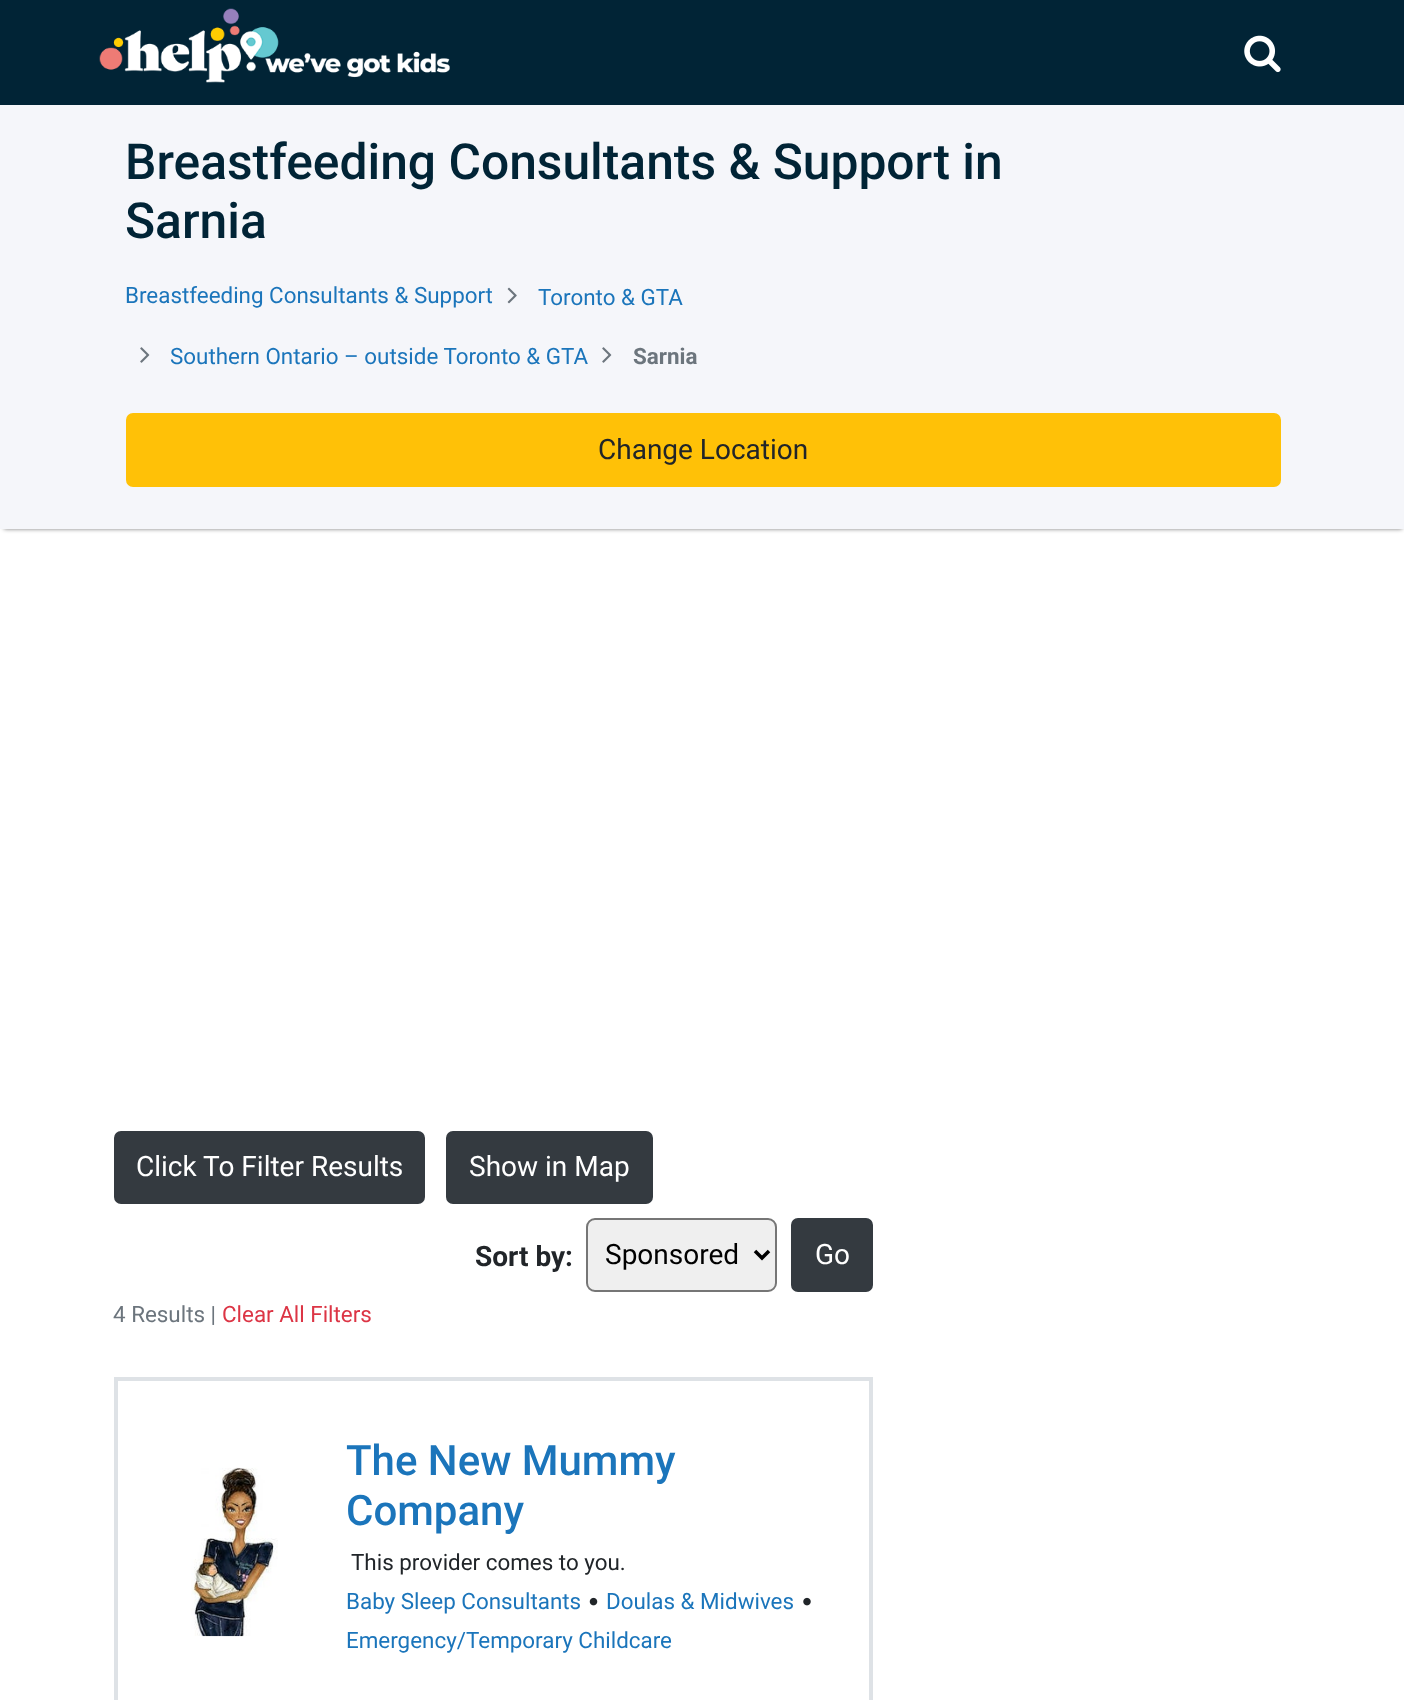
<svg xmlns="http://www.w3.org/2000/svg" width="1404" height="1700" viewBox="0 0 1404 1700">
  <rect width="100%" height="100%" fill="rgb(255,255,255)"/>
  <rect x="0" y="0" width="1404" height="105" fill="rgb(1,36,54)"/>
  <image x="99" y="8" width="351" height="75" href="pic1.png"/>
  <image x="1244" y="35" width="37" height="38" href="pic2.png"/>
  <rect x="4" y="112" width="1398" height="417" fill="rgba(0,0,0,0.52)" filter="blur(2px)"/>
  <rect x="0" y="105" width="1404" height="424" fill="rgb(245,246,250)"/>
  <g font-family="Roboto" font-size="49.75" font-weight="500" fill="rgb(1,36,54)">
    <text>
      <tspan x="125" y="179">Breastfeeding Consultants &amp; Support in</tspan>
      <tspan x="125" y="238">Sarnia</tspan>
    </text>
  </g>
  <text x="125" y="303" font-family="Roboto" font-size="22.4" fill="rgb(27,117,187)">Breastfeeding Consultants &amp; Support</text>
  <image x="507" y="287" width="10" height="17" href="pic3.png"/>
  <text x="538" y="305" font-family="Roboto" font-size="22.4" fill="rgb(27,117,187)">Toronto &amp; GTA</text>
  <image x="140" y="347" width="10" height="16" href="pic4.png"/>
  <text x="170" y="364" font-family="Roboto" font-size="22.4" fill="rgb(27,117,187)">Southern Ontario – outside Toronto &amp; GTA</text>
  <image x="602" y="347" width="10" height="16" href="pic4.png"/>
  <text x="633" y="364" font-family="Roboto" font-size="22.4" font-weight="bold" fill="rgb(108,117,125)">Sarnia</text>
  <rect x="127" y="414" width="1153" height="72" rx="6" fill="rgb(255,193,7)" stroke="rgb(255,193,7)" stroke-width="2"/>
  <text x="598" y="459" font-family="Roboto" font-size="28" fill="rgb(33,37,41)">Change Location</text>
  <rect x="115" y="1132" width="309" height="71" rx="6" fill="rgb(52,58,64)" stroke="rgb(52,58,64)" stroke-width="2"/>
  <text x="136" y="1176" font-family="Roboto" font-size="28" fill="rgb(255,255,255)">Click To Filter Results</text>
  <rect x="447" y="1132" width="205" height="71" rx="6" fill="rgb(52,58,64)" stroke="rgb(52,58,64)" stroke-width="2"/>
  <text x="469" y="1176" font-family="Roboto" font-size="28" fill="rgb(255,255,255)">Show in Map</text>
  <text x="475" y="1266" font-family="Roboto" font-size="28" font-weight="bold" fill="rgb(33,37,41)">Sort by:</text>
  <rect x="587" y="1219" width="189" height="72" rx="8" fill="rgb(239,239,239)" stroke="rgb(118,118,118)" stroke-width="2"/>
  <path d="M755 1251L762 1258L769 1251" fill="none" stroke="rgb(0,0,0)" stroke-width="3.5"/>
  <text x="605" y="1264" font-family="Roboto" font-size="28" fill="rgb(0,0,0)">Sponsored</text>
  <rect x="792" y="1219" width="80" height="72" rx="6" fill="rgb(52,58,64)" stroke="rgb(52,58,64)" stroke-width="2"/>
  <text x="815" y="1264" font-family="Roboto" font-size="28" fill="rgb(255,255,255)">Go</text>
  <text x="113" y="1322" font-family="Roboto" font-size="22.4" fill="rgb(108,117,125)">4 Results |</text>
  <text x="222" y="1322" font-family="Roboto" font-size="22.4" fill="rgb(220,53,69)">Clear All Filters</text>
  <rect x="116" y="1379" width="755" height="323" fill="none" stroke="rgb(222,226,230)" stroke-width="4"/>
  <image x="191" y="1467" width="87" height="170" href="pic5.png"/>
  <g font-family="Roboto" font-size="42" font-weight="500" fill="rgb(27,117,187)">
    <text>
      <tspan x="346" y="1475">The New Mummy</tspan>
      <tspan x="346" y="1525">Company</tspan>
    </text>
  </g>
  <text x="351" y="1570" font-family="Roboto" font-size="22.4" fill="rgb(33,37,41)">This provider comes to you.</text>
  <text x="346" y="1609" font-family="Roboto" font-size="22.4" fill="rgb(27,117,187)">Baby Sleep Consultants</text>
  <image x="589" y="1597" width="9" height="9" href="pic6.png"/>
  <text x="606" y="1609" font-family="Roboto" font-size="22.4" fill="rgb(27,117,187)">Doulas &amp; Midwives</text>
  <image x="803" y="1597" width="8" height="9" href="pic7.png"/>
  <text x="346" y="1648" font-family="Roboto" font-size="22.4" fill="rgb(27,117,187)">Emergency/Temporary Childcare</text>
</svg>
